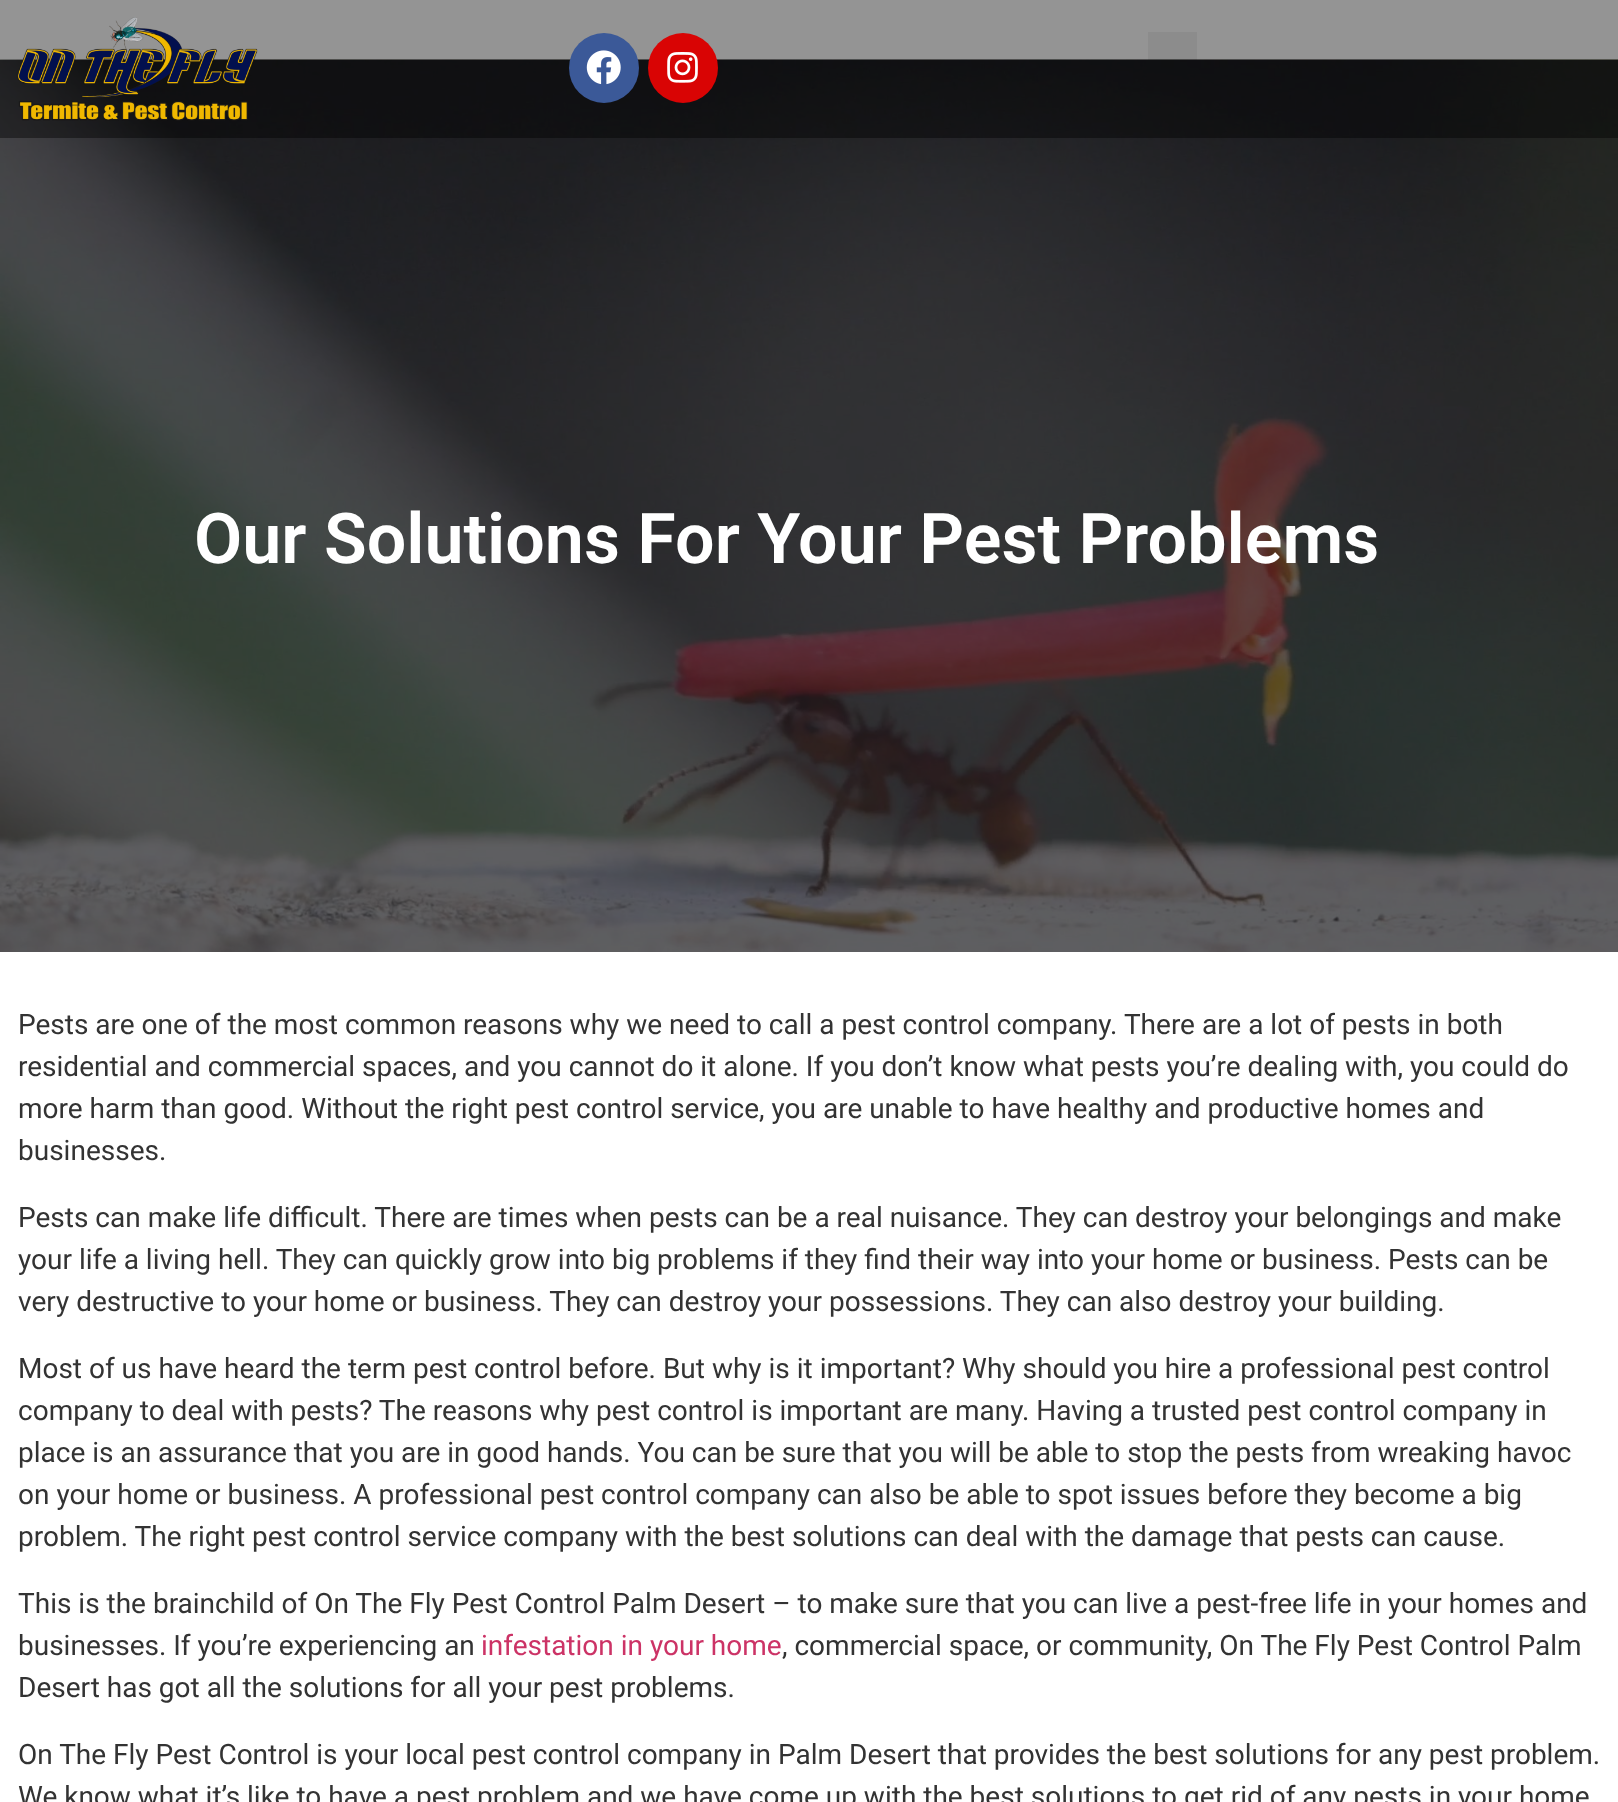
<svg xmlns="http://www.w3.org/2000/svg" width="1618" height="1802" viewBox="0 0 1618 1802">
  <rect width="100%" height="100%" fill="rgb(255,255,255)"/>
  <image x="0" y="59" width="1618" height="893" href="pic4.png"/>
  <rect x="0" y="0" width="1618" height="138" fill="rgba(0,0,0,0.42)"/>
  <image x="17" y="17" width="241" height="104" href="pic1.png"/>
  <circle cx="604" cy="68" r="35" fill="rgb(59,89,152)"/>
  <image x="586" y="50" width="35" height="35" href="pic2.png"/>
  <circle cx="683" cy="68" r="35" fill="rgb(217,4,4)"/>
  <image x="667" y="52" width="31" height="31" href="pic3.png"/>
  <rect x="1148" y="32" width="49" height="28" fill="rgba(0,0,0,0.05)"/>
  <text x="194" y="563" font-family="Roboto" font-size="70" font-weight="600" fill="rgb(255,255,255)">Our Solutions For Your Pest Problems</text>
  <g font-family="Roboto" font-size="28" fill="rgb(51,51,51)">
    <text>
      <tspan x="18" y="1034">Pests are one of the most common reasons why we need to call a pest control company. There are a lot of pests in both</tspan>
      <tspan x="18" y="1076">residential and commercial spaces, and you cannot do it alone. If you don’t know what pests you’re dealing with, you could do</tspan>
      <tspan x="18" y="1118">more harm than good. Without the right pest control service, you are unable to have healthy and productive homes and</tspan>
      <tspan x="18" y="1160">businesses.</tspan>
    </text>
    <text>
      <tspan x="18" y="1227">Pests can make life difficult. There are times when pests can be a real nuisance. They can destroy your belongings and make</tspan>
      <tspan x="18" y="1269">your life a living hell. They can quickly grow into big problems if they find their way into your home or business. Pests can be</tspan>
      <tspan x="18" y="1311">very destructive to your home or business. They can destroy your possessions. They can also destroy your building.</tspan>
    </text>
    <text>
      <tspan x="18" y="1378">Most of us have heard the term pest control before. But why is it important? Why should you hire a professional pest control</tspan>
      <tspan x="18" y="1420">company to deal with pests? The reasons why pest control is important are many. Having a trusted pest control company in</tspan>
      <tspan x="18" y="1462">place is an assurance that you are in good hands. You can be sure that you will be able to stop the pests from wreaking havoc</tspan>
      <tspan x="18" y="1504">on your home or business. A professional pest control company can also be able to spot issues before they become a big</tspan>
      <tspan x="18" y="1546">problem. The right pest control service company with the best solutions can deal with the damage that pests can cause.</tspan>
    </text>
    <text>
      <tspan x="18" y="1613">This is the brainchild of On The Fly Pest Control Palm Desert – to make sure that you can live a pest-free life in your homes and</tspan>
      <tspan x="18" y="1655">businesses. If you’re experiencing an</tspan>
    </text>
  </g>
  <text x="481" y="1655" font-family="Roboto" font-size="28" fill="rgb(204,51,102)">infestation in your home</text>
  <g font-family="Roboto" font-size="28" fill="rgb(51,51,51)">
    <text x="782" y="1655">, commercial space, or community, On The Fly Pest Control Palm</text>
    <text x="18" y="1697">Desert has got all the solutions for all your pest problems.</text>
    <text>
      <tspan x="18" y="1764">On The Fly Pest Control is your local pest control company in Palm Desert that provides the best solutions for any pest problem.</tspan>
      <tspan x="18" y="1806">We know what it’s like to have a pest problem and we have come up with the best solutions to get rid of any pests in your home</tspan>
    </text>
  </g>
</svg>
